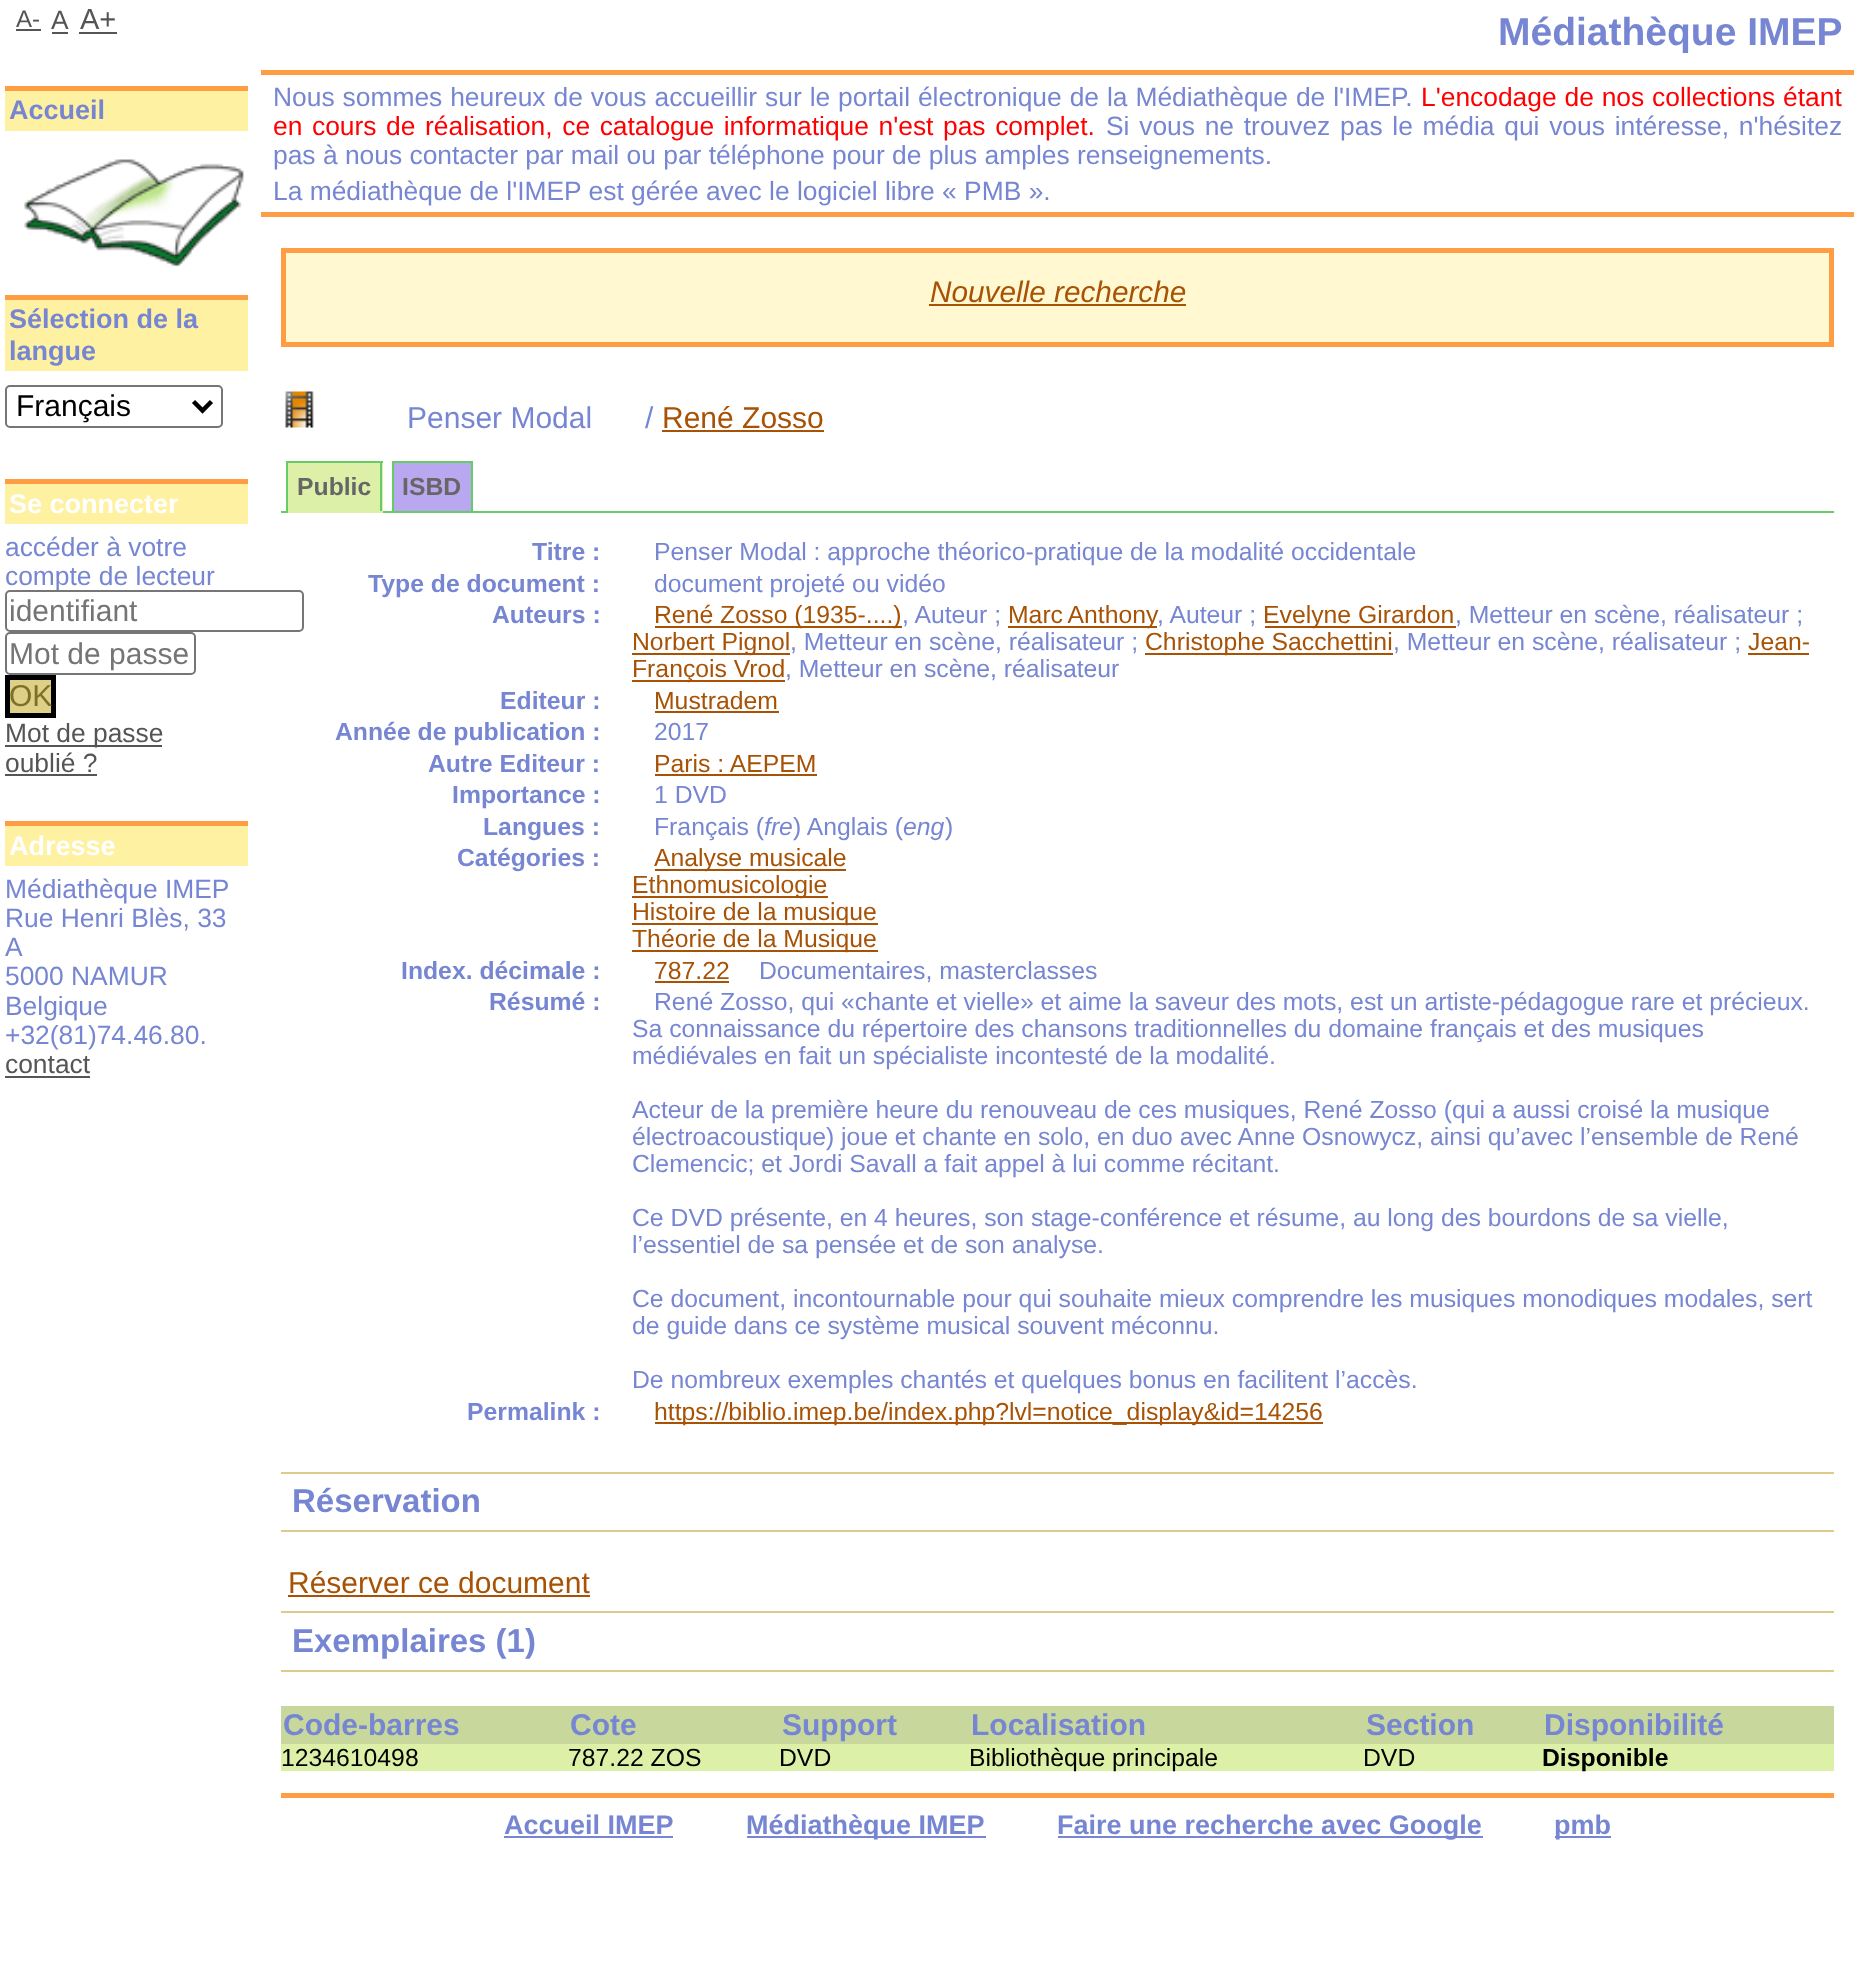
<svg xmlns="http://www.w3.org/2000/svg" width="1872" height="1975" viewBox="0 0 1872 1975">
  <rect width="100%" height="100%" fill="rgb(255,255,255)"/>
  <text x="16" y="27" font-family="Liberation Sans" font-size="24" fill="rgb(85,85,85)">A-</text>
  <rect x="16" y="29" width="25" height="2" fill="rgb(85,85,85)"/>
  <text x="51" y="29" font-family="Liberation Sans" font-size="26.4" fill="rgb(85,85,85)">A</text>
  <rect x="52" y="32" width="16" height="2" fill="rgb(85,85,85)"/>
  <text x="80" y="29" font-family="Liberation Sans" font-size="29" fill="rgb(85,85,85)">A+</text>
  <rect x="79" y="32" width="38" height="2" fill="rgb(85,85,85)"/>
  <rect x="5" y="91" width="243" height="40" fill="rgb(255,241,162)"/>
  <rect x="5" y="86" width="243" height="5" fill="rgb(254,157,67)"/>
  <text x="9" y="119" font-family="Liberation Sans" font-size="27" font-weight="bold" fill="rgb(118,134,210)">Accueil</text>
  <image x="24" y="159" width="220" height="108" href="pic1.png"/>
  <rect x="5" y="300" width="243" height="71" fill="rgb(255,241,162)"/>
  <rect x="5" y="295" width="243" height="5" fill="rgb(254,157,67)"/>
  <g font-family="Liberation Sans" font-size="27" font-weight="bold" fill="rgb(118,134,210)">
    <text>
      <tspan x="9" y="328">Sélection de la</tspan>
      <tspan x="9" y="360">langue</tspan>
    </text>
  </g>
  <rect x="6" y="386" width="216" height="41" rx="4" fill="none" stroke="rgb(118,118,118)" stroke-width="2"/>
  <path d="M193.5 401.5L202.5 410.5L211.5 401.5" fill="none" stroke="rgb(0,0,0)" stroke-width="4.5"/>
  <text x="16" y="416" font-family="Liberation Sans" font-size="30" fill="rgb(0,0,0)">Français</text>
  <rect x="5" y="484" width="243" height="40" fill="rgb(255,241,162)"/>
  <rect x="5" y="479" width="243" height="5" fill="rgb(254,157,67)"/>
  <text x="9" y="513" font-family="Liberation Sans" font-size="27" font-weight="bold" fill="rgb(255,255,255)">Se connecter</text>
  <g font-family="Liberation Sans" font-size="26.4" fill="rgb(118,134,210)">
    <text>
      <tspan x="5" y="556">accéder à votre</tspan>
      <tspan x="5" y="585">compte de lecteur</tspan>
    </text>
  </g>
  <rect x="6" y="591" width="297" height="40" rx="4" fill="rgb(255,255,255)" stroke="rgb(118,118,118)" stroke-width="2"/>
  <text x="9" y="621" font-family="Liberation Sans" font-size="30" fill="rgb(117,117,117)">identifiant</text>
  <rect x="6" y="633" width="189" height="41" rx="4" fill="none" stroke="rgb(118,118,118)" stroke-width="2"/>
  <text x="9" y="664" font-family="Liberation Sans" font-size="30" fill="rgb(117,117,117)">Mot de passe</text>
  <rect x="7.5" y="677.5" width="46" height="38" fill="rgb(223,208,135)" stroke="rgb(0,0,0)" stroke-width="5"/>
  <text x="9" y="706" font-family="Liberation Sans" font-size="30" fill="rgb(127,112,39)">OK</text>
  <rect x="5" y="745" width="157" height="2" fill="rgb(85,85,85)"/>
  <g font-family="Liberation Sans" font-size="26.4" fill="rgb(85,85,85)">
    <text>
      <tspan x="5" y="742">Mot de passe</tspan>
      <tspan x="5" y="772">oublié ?</tspan>
    </text>
  </g>
  <rect x="5" y="774" width="92" height="2" fill="rgb(85,85,85)"/>
  <rect x="5" y="826" width="243" height="40" fill="rgb(255,241,162)"/>
  <rect x="5" y="821" width="243" height="5" fill="rgb(254,157,67)"/>
  <text x="9" y="855" font-family="Liberation Sans" font-size="27" font-weight="bold" fill="rgb(255,255,255)">Adresse</text>
  <g font-family="Liberation Sans" font-size="26.4" fill="rgb(118,134,210)">
    <text>
      <tspan x="5" y="898">Médiathèque IMEP</tspan>
      <tspan x="5" y="927">Rue Henri Blès, 33</tspan>
      <tspan x="5" y="956">A</tspan>
      <tspan x="5" y="985">5000 NAMUR</tspan>
      <tspan x="5" y="1015">Belgique</tspan>
      <tspan x="5" y="1044">+32(81)74.46.80.</tspan>
    </text>
  </g>
  <text x="5" y="1073" font-family="Liberation Sans" font-size="26.4" fill="rgb(85,85,85)">contact</text>
  <rect x="5" y="1076" width="85" height="2" fill="rgb(85,85,85)"/>
  <rect x="261" y="212" width="1593" height="5" fill="rgb(254,157,67)"/>
  <rect x="261" y="70" width="1593" height="5" fill="rgb(254,157,67)"/>
  <text x="1498" y="45" font-family="Liberation Sans" font-size="39" font-weight="bold" fill="rgb(118,134,210)">Médiathèque IMEP</text>
  <text x="273" y="106" word-spacing="0.6" font-family="Liberation Sans" font-size="26.4" fill="rgb(118,134,210)">Nous sommes heureux de vous accueillir sur le portail électronique de la Médiathèque de l'IMEP.</text>
  <g font-family="Liberation Sans" font-size="26.4" fill="rgb(255,0,0)">
    <text x="1421" y="106" word-spacing="0.5">L'encodage de nos collections étant</text>
    <text x="273" y="135" word-spacing="2.25">en cours de réalisation, ce catalogue informatique n'est pas complet.</text>
  </g>
  <g font-family="Liberation Sans" font-size="26.4" fill="rgb(118,134,210)">
    <text x="1106" y="135" word-spacing="2.4">Si vous ne trouvez pas le média qui vous intéresse, n'hésitez</text>
    <text>
      <tspan x="273" y="164">pas à nous contacter par mail ou par téléphone pour de plus amples renseignements.</tspan>
      <tspan x="273" y="200">La médiathèque de l'IMEP est gérée avec le logiciel libre « PMB ».</tspan>
    </text>
  </g>
  <rect x="283.5" y="250.5" width="1548" height="94" fill="rgb(255,248,209)" stroke="rgb(254,157,67)" stroke-width="5"/>
  <text x="930" y="302" font-family="Liberation Sans" font-size="29.75" font-style="italic" fill="rgb(167,82,4)">Nouvelle recherche</text>
  <rect x="929" y="304" width="257" height="2" fill="rgb(167,82,4)"/>
  <image x="285" y="391" width="29" height="37" href="pic2.png"/>
  <g font-family="Liberation Sans" font-size="30" fill="rgb(118,134,210)">
    <text x="407" y="428">Penser Modal</text>
    <text x="645" y="428">/</text>
  </g>
  <text x="662" y="428" font-family="Liberation Sans" font-size="30" fill="rgb(167,82,4)">René Zosso</text>
  <rect x="662" y="430" width="162" height="2" fill="rgb(167,82,4)"/>
  <rect x="281" y="511" width="1553" height="2" fill="rgb(102,204,102)"/>
  <rect x="288" y="463" width="95" height="48" fill="rgb(221,240,167)"/>
  <rect x="286" y="461" width="97" height="2" fill="rgb(102,204,102)"/>
  <rect x="380" y="461" width="2" height="52" fill="rgb(102,204,102)"/>
  <rect x="286" y="511" width="97" height="2" fill="rgb(221,240,167)"/>
  <rect x="286" y="461" width="2" height="52" fill="rgb(102,204,102)"/>
  <text x="297" y="495" font-family="Liberation Sans" font-size="24.75" font-weight="bold" fill="rgb(102,102,102)">Public</text>
  <rect x="393" y="462" width="79" height="50" fill="rgb(185,168,240)" stroke="rgb(102,204,102)" stroke-width="2"/>
  <text x="402" y="495" font-family="Liberation Sans" font-size="24.75" font-weight="bold" fill="rgb(102,102,102)">ISBD</text>
  <text x="532" y="560" font-family="Liberation Sans" font-size="24.75" font-weight="bold" fill="rgb(118,134,210)">Titre :</text>
  <text x="654" y="560" font-family="Liberation Sans" font-size="24.75" fill="rgb(118,134,210)">Penser Modal : approche théorico-pratique de la modalité occidentale</text>
  <text x="368" y="592" font-family="Liberation Sans" font-size="24.75" font-weight="bold" fill="rgb(118,134,210)">Type de document :</text>
  <text x="654" y="592" font-family="Liberation Sans" font-size="24.75" fill="rgb(118,134,210)">document projeté ou vidéo</text>
  <text x="492" y="623" font-family="Liberation Sans" font-size="24.75" font-weight="bold" fill="rgb(118,134,210)">Auteurs :</text>
  <rect x="655" y="626" width="247" height="2" fill="rgb(167,82,4)"/>
  <text x="654" y="623" font-family="Liberation Sans" font-size="24.75" fill="rgb(167,82,4)">René Zosso (1935-....)</text>
  <text x="902" y="623" font-family="Liberation Sans" font-size="24.75" fill="rgb(118,134,210)">, Auteur ;</text>
  <rect x="1008" y="626" width="149" height="2" fill="rgb(167,82,4)"/>
  <text x="1008" y="623" word-spacing="-1" font-family="Liberation Sans" font-size="24.75" fill="rgb(167,82,4)">Marc Anthony</text>
  <text x="1157" y="623" font-family="Liberation Sans" font-size="24.75" fill="rgb(118,134,210)">, Auteur ;</text>
  <rect x="1265" y="626" width="191" height="2" fill="rgb(167,82,4)"/>
  <text x="1263" y="623" font-family="Liberation Sans" font-size="24.75" fill="rgb(167,82,4)">Evelyne Girardon</text>
  <text x="1455" y="623" font-family="Liberation Sans" font-size="24.75" fill="rgb(118,134,210)">, Metteur en scène, réalisateur ;</text>
  <rect x="632" y="653" width="158" height="2" fill="rgb(167,82,4)"/>
  <text x="632" y="650" font-family="Liberation Sans" font-size="24.75" fill="rgb(167,82,4)">Norbert Pignol</text>
  <text x="790" y="650" font-family="Liberation Sans" font-size="24.75" fill="rgb(118,134,210)">, Metteur en scène, réalisateur ;</text>
  <rect x="1145" y="653" width="248" height="2" fill="rgb(167,82,4)"/>
  <text x="1145" y="650" font-family="Liberation Sans" font-size="24.75" fill="rgb(167,82,4)">Christophe Sacchettini</text>
  <text x="1393" y="650" font-family="Liberation Sans" font-size="24.75" fill="rgb(118,134,210)">, Metteur en scène, réalisateur ;</text>
  <text x="1748" y="650" font-family="Liberation Sans" font-size="24.75" fill="rgb(167,82,4)">Jean-</text>
  <rect x="1748" y="653" width="61" height="2" fill="rgb(167,82,4)"/>
  <rect x="632" y="680" width="153" height="2" fill="rgb(167,82,4)"/>
  <text x="632" y="677" font-family="Liberation Sans" font-size="24.75" fill="rgb(167,82,4)">François Vrod</text>
  <text x="785" y="677" font-family="Liberation Sans" font-size="24.75" fill="rgb(118,134,210)">, Metteur en scène, réalisateur</text>
  <text x="500" y="709" font-family="Liberation Sans" font-size="24.75" font-weight="bold" fill="rgb(118,134,210)">Editeur :</text>
  <text x="654" y="709" font-family="Liberation Sans" font-size="24.75" fill="rgb(167,82,4)">Mustradem</text>
  <rect x="655" y="711" width="124" height="2" fill="rgb(167,82,4)"/>
  <text x="335" y="740" font-family="Liberation Sans" font-size="24.75" font-weight="bold" fill="rgb(118,134,210)">Année de publication :</text>
  <text x="654" y="740" font-family="Liberation Sans" font-size="24.75" fill="rgb(118,134,210)">2017</text>
  <text x="428" y="772" font-family="Liberation Sans" font-size="24.75" font-weight="bold" fill="rgb(118,134,210)">Autre Editeur :</text>
  <text x="654" y="772" font-family="Liberation Sans" font-size="24.75" fill="rgb(167,82,4)">Paris : AEPEM</text>
  <rect x="655" y="774" width="162" height="2" fill="rgb(167,82,4)"/>
  <text x="452" y="803" font-family="Liberation Sans" font-size="24.75" font-weight="bold" fill="rgb(118,134,210)">Importance :</text>
  <text x="654" y="803" font-family="Liberation Sans" font-size="24.75" fill="rgb(118,134,210)">1 DVD</text>
  <text x="483" y="835" font-family="Liberation Sans" font-size="24.75" font-weight="bold" fill="rgb(118,134,210)">Langues :</text>
  <text x="654" y="835" font-family="Liberation Sans" font-size="24.75" fill="rgb(118,134,210)">Français (</text>
  <text x="764" y="835" font-family="Liberation Sans" font-size="24.75" font-style="italic" fill="rgb(118,134,210)">fre</text>
  <text x="793" y="835" font-family="Liberation Sans" font-size="24.75" fill="rgb(118,134,210)">) Anglais (</text>
  <text x="903" y="835" font-family="Liberation Sans" font-size="24.75" font-style="italic" fill="rgb(118,134,210)">eng</text>
  <text x="945" y="835" font-family="Liberation Sans" font-size="24.75" fill="rgb(118,134,210)">)</text>
  <text x="457" y="866" font-family="Liberation Sans" font-size="24.75" font-weight="bold" fill="rgb(118,134,210)">Catégories :</text>
  <rect x="655" y="869" width="191" height="2" fill="rgb(167,82,4)"/>
  <text x="654" y="866" font-family="Liberation Sans" font-size="24.75" fill="rgb(167,82,4)">Analyse musicale</text>
  <rect x="632" y="896" width="196" height="2" fill="rgb(167,82,4)"/>
  <text x="632" y="893" font-family="Liberation Sans" font-size="24.75" fill="rgb(167,82,4)">Ethnomusicologie</text>
  <rect x="632" y="923" width="246" height="2" fill="rgb(167,82,4)"/>
  <text x="632" y="920" font-family="Liberation Sans" font-size="24.75" fill="rgb(167,82,4)">Histoire de la musique</text>
  <rect x="632" y="950" width="246" height="2" fill="rgb(167,82,4)"/>
  <text x="632" y="947" font-family="Liberation Sans" font-size="24.75" fill="rgb(167,82,4)">Théorie de la Musique</text>
  <text x="401" y="979" font-family="Liberation Sans" font-size="24.75" font-weight="bold" fill="rgb(118,134,210)">Index. décimale :</text>
  <text x="654" y="979" font-family="Liberation Sans" font-size="24.75" fill="rgb(167,82,4)">787.22</text>
  <rect x="655" y="981" width="74" height="2" fill="rgb(167,82,4)"/>
  <text x="759" y="979" font-family="Liberation Sans" font-size="24.75" fill="rgb(118,134,210)">Documentaires, masterclasses</text>
  <text x="489" y="1010" font-family="Liberation Sans" font-size="24.75" font-weight="bold" fill="rgb(118,134,210)">Résumé :</text>
  <g font-family="Liberation Sans" font-size="24.75" fill="rgb(118,134,210)">
    <text x="654" y="1010">René Zosso, qui «chante et vielle» et aime la saveur des mots, est un artiste-pédagogue rare et précieux.</text>
    <text>
      <tspan x="632" y="1037">Sa connaissance du répertoire des chansons traditionnelles du domaine français et des musiques</tspan>
      <tspan x="632" y="1064">médiévales en fait un spécialiste incontesté de la modalité.</tspan>
    </text>
    <text>
      <tspan x="632" y="1118">Acteur de la première heure du renouveau de ces musiques, René Zosso (qui a aussi croisé la musique</tspan>
      <tspan x="632" y="1145">électroacoustique) joue et chante en solo, en duo avec Anne Osnowycz, ainsi qu’avec l’ensemble de René</tspan>
      <tspan x="632" y="1172">Clemencic; et Jordi Savall a fait appel à lui comme récitant.</tspan>
    </text>
    <text>
      <tspan x="632" y="1226">Ce DVD présente, en 4 heures, son stage-conférence et résume, au long des bourdons de sa vielle,</tspan>
      <tspan x="632" y="1253">l’essentiel de sa pensée et de son analyse.</tspan>
    </text>
    <text>
      <tspan x="632" y="1307">Ce document, incontournable pour qui souhaite mieux comprendre les musiques monodiques modales, sert</tspan>
      <tspan x="632" y="1334">de guide dans ce système musical souvent méconnu.</tspan>
    </text>
    <text x="632" y="1388">De nombreux exemples chantés et quelques bonus en facilitent l’accès.</text>
  </g>
  <text x="467" y="1420" font-family="Liberation Sans" font-size="24.75" font-weight="bold" fill="rgb(118,134,210)">Permalink :</text>
  <rect x="655" y="1422" width="668" height="2" fill="rgb(167,82,4)"/>
  <text x="654" y="1420" font-family="Liberation Sans" font-size="24.75" fill="rgb(167,82,4)">https://biblio.imep.be/index.php?lvl=notice_display&amp;id=14256</text>
  <rect x="281" y="1472" width="1553" height="2" fill="rgb(221,203,140)"/>
  <rect x="281" y="1530" width="1553" height="2" fill="rgb(221,203,140)"/>
  <text x="292" y="1512" font-family="Liberation Sans" font-size="33" font-weight="bold" fill="rgb(118,134,210)">Réservation</text>
  <text x="288" y="1593" font-family="Liberation Sans" font-size="30" fill="rgb(167,82,4)">Réserver ce document</text>
  <rect x="288" y="1595" width="302" height="2" fill="rgb(167,82,4)"/>
  <rect x="281" y="1611" width="1553" height="2" fill="rgb(221,203,140)"/>
  <rect x="281" y="1670" width="1553" height="2" fill="rgb(221,203,140)"/>
  <text x="292" y="1652" font-family="Liberation Sans" font-size="33" font-weight="bold" fill="rgb(118,134,210)">Exemplaires (1)</text>
  <rect x="281" y="1706" width="1553" height="38" fill="rgb(200,215,155)"/>
  <g font-family="Liberation Sans" font-size="30" font-weight="bold" fill="rgb(118,134,210)">
    <text x="283" y="1735">Code-barres</text>
    <text x="570" y="1735">Cote</text>
    <text x="782" y="1735">Support</text>
    <text x="971" y="1735">Localisation</text>
    <text x="1366" y="1735">Section</text>
    <text x="1544" y="1735">Disponibilité</text>
  </g>
  <rect x="281" y="1744" width="1553" height="27" fill="rgb(221,240,167)"/>
  <g font-family="Liberation Sans" font-size="24.75" fill="rgb(0,0,0)">
    <text x="281" y="1766">1234610498</text>
    <text x="568" y="1766">787.22 ZOS</text>
    <text x="779" y="1766">DVD</text>
    <text x="969" y="1766">Bibliothèque principale</text>
    <text x="1363" y="1766">DVD</text>
  </g>
  <text x="1542" y="1766" font-family="Liberation Sans" font-size="24.75" font-weight="bold" fill="rgb(0,0,0)">Disponible</text>
  <rect x="281" y="1793" width="1553" height="5" fill="rgb(254,157,67)"/>
  <text x="504" y="1834" font-family="Liberation Sans" font-size="27" font-weight="bold" fill="rgb(118,134,210)">Accueil IMEP</text>
  <rect x="504" y="1836" width="169" height="2" fill="rgb(118,134,210)"/>
  <rect x="747" y="1836" width="239" height="2" fill="rgb(118,134,210)"/>
  <text x="746" y="1834" font-family="Liberation Sans" font-size="27" font-weight="bold" fill="rgb(118,134,210)">Médiathèque IMEP</text>
  <rect x="1058" y="1836" width="425" height="2" fill="rgb(118,134,210)"/>
  <text x="1057" y="1834" font-family="Liberation Sans" font-size="27" font-weight="bold" fill="rgb(118,134,210)">Faire une recherche avec Google</text>
  <rect x="1555" y="1836" width="56" height="2" fill="rgb(118,134,210)"/>
  <text x="1554" y="1834" font-family="Liberation Sans" font-size="27" font-weight="bold" fill="rgb(118,134,210)">pmb</text>
</svg>
